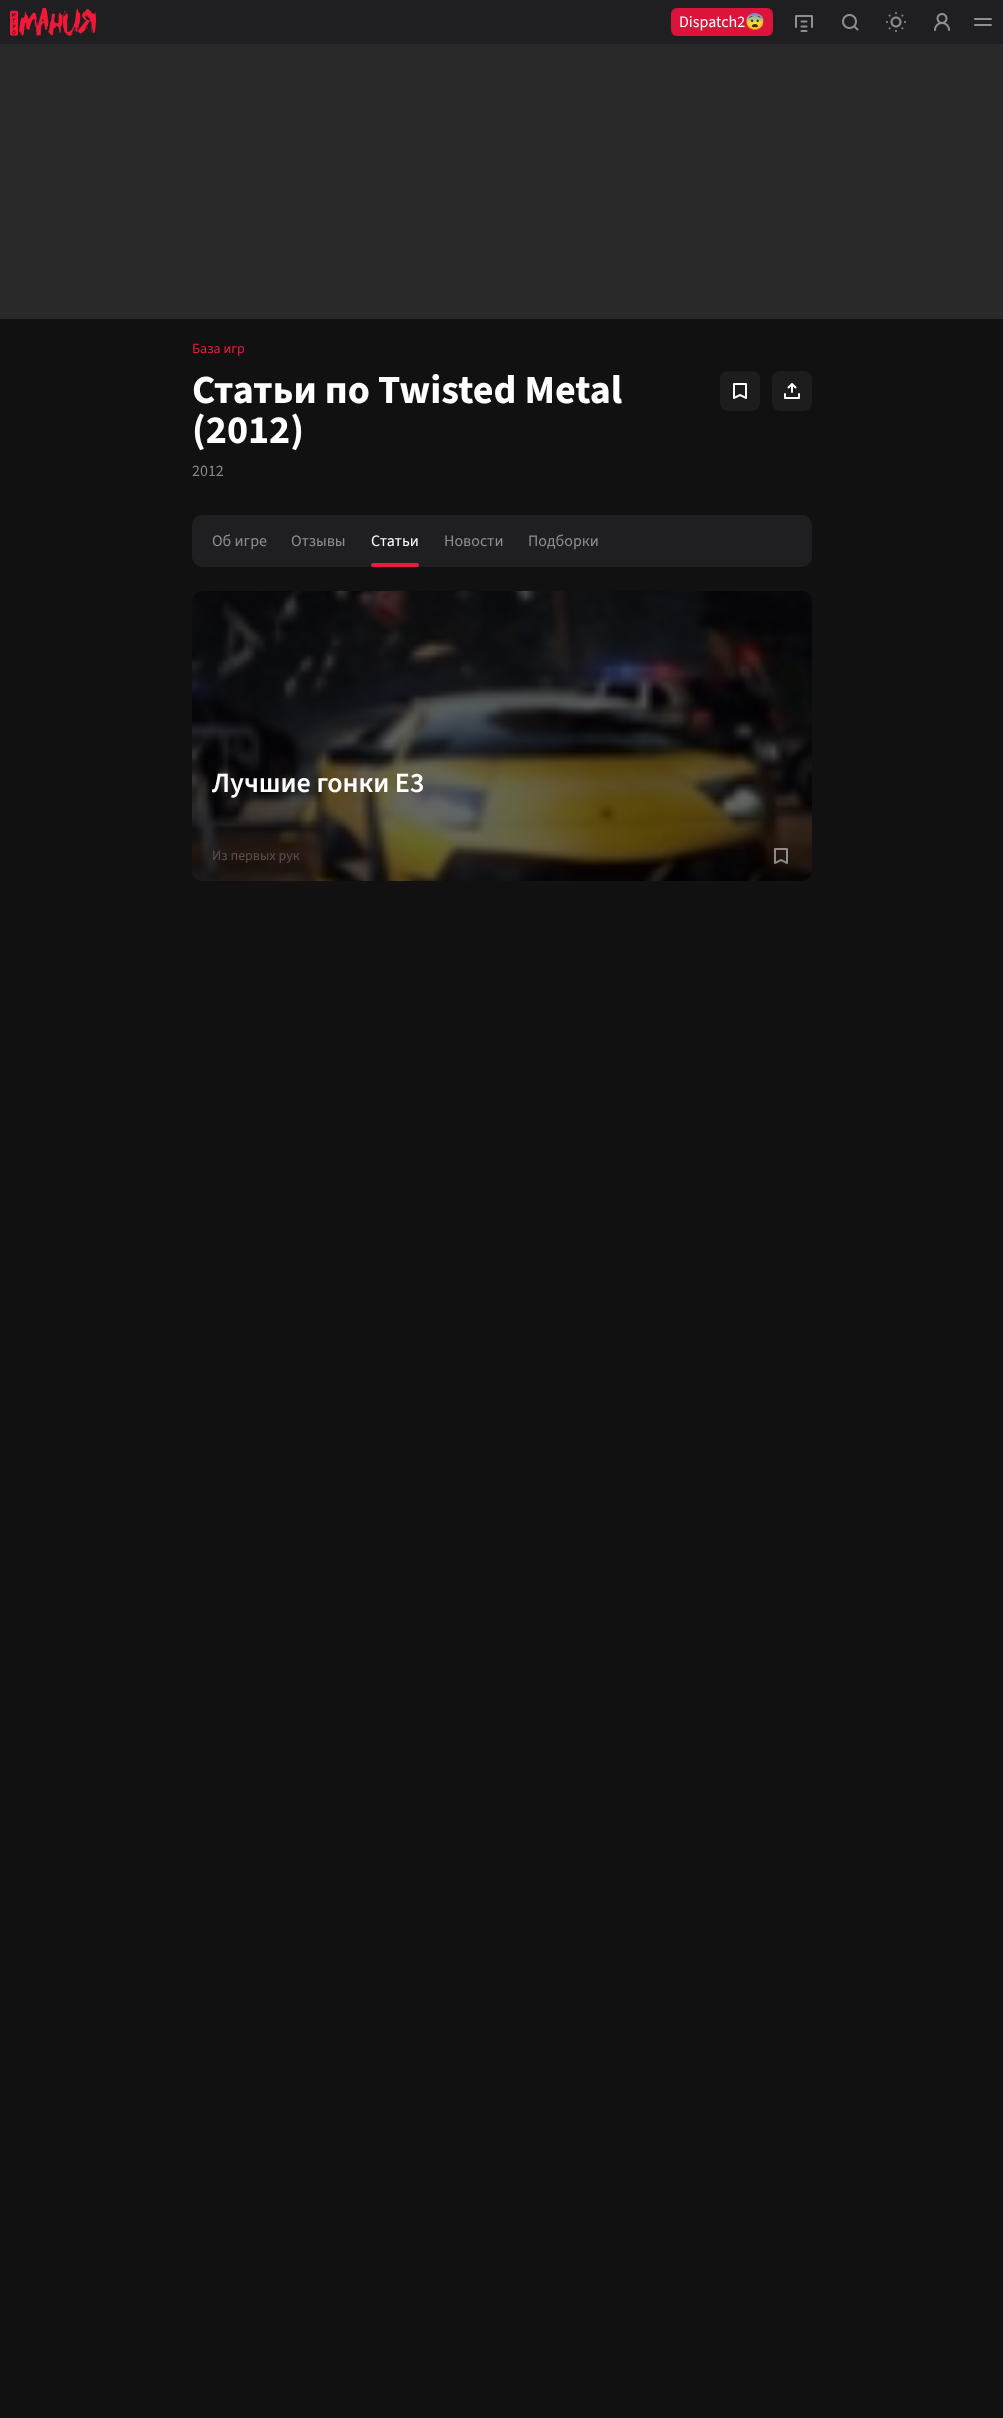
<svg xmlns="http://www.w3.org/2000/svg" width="1003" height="2418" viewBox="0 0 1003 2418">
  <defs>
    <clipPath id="clip1"><rect x="212" y="768" width="400" height="30"/></clipPath>
  </defs>
  <rect width="100%" height="100%" fill="rgb(17,17,18)"/>
  <rect x="0" y="0" width="1003" height="44" fill="rgb(31,31,33)"/>
  <image x="10" y="8" width="86" height="28" href="pic1.png"/>
  <rect x="671" y="8" width="102" height="28" rx="6" fill="rgb(220,20,60)"/>
  <text x="679" y="27" font-family="'Source Sans 3'" font-size="16" fill="rgb(255,255,255)">Dispatch2</text>
  <text x="745" y="27" font-family="Noto Color Emoji" font-size="16" fill="rgb(255,255,255)">😨</text>
  <image x="795" y="15" width="18" height="17" href="pic2.png"/>
  <image x="842" y="14" width="17" height="17" href="pic3.png"/>
  <image x="886" y="12" width="20" height="20" href="pic4.png"/>
  <image x="934" y="13" width="16" height="18" href="pic5.png"/>
  <image x="974" y="18" width="18" height="8" href="pic6.png"/>
  <rect x="0" y="44" width="1003" height="275" fill="rgb(41,41,42)"/>
  <text x="192" y="353" font-family="'Source Sans 3'" font-size="14" fill="rgb(242,25,61)">База игр</text>
  <g font-family="'Source Sans 3'" font-size="40" font-weight="bold" fill="rgb(255,255,255)">
    <text>
      <tspan x="192" y="403">Статьи по Twisted Metal</tspan>
      <tspan x="192" y="443">(2012)</tspan>
    </text>
  </g>
  <rect x="720" y="371" width="40" height="40" rx="8" fill="rgb(29,29,30)"/>
  <image x="733" y="383" width="14" height="16" href="pic7.png"/>
  <rect x="772" y="371" width="40" height="40" rx="8" fill="rgb(29,29,30)"/>
  <image x="784" y="383" width="16" height="16" href="pic8.png"/>
  <text x="192" y="476" font-family="'Source Sans 3'" font-size="16" fill="rgb(136,136,137)">2012</text>
  <rect x="192" y="515" width="620" height="52" rx="10" fill="rgb(31,31,33)"/>
  <g font-family="'Source Sans 3'" font-size="16" fill="rgb(143,143,144)">
    <text x="212" y="546">Об игре</text>
    <text x="291" y="546">Отзывы</text>
  </g>
  <text x="371" y="546" font-family="'Source Sans 3'" font-size="16" fill="rgb(255,255,255)">Статьи</text>
  <rect x="371" y="563" width="48" height="4" rx="2" fill="rgb(242,25,61)"/>
  <g font-family="'Source Sans 3'" font-size="16" fill="rgb(143,143,144)">
    <text x="444" y="546">Новости</text>
    <text x="528" y="546">Подборки</text>
  </g>
  <rect x="192" y="591" width="620" height="290" rx="10" fill="rgb(31,31,33)"/>
  <image x="192" y="591" width="620" height="290" href="pic9.png"/>
  <rect x="192" y="591" width="620" height="290" rx="10" fill="rgba(0,0,0,0.6)"/>
  <g clip-path="url(#clip1)">
    <text x="212" y="792" font-family="'Source Sans 3'" font-size="28" font-weight="600" fill="rgb(255,255,255)">Лучшие гонки Е3</text>
  </g>
  <text x="212" y="860" font-family="'Source Sans 3'" font-size="14" fill="rgb(89,81,78)">Из первых рук</text>
  <image x="774" y="848" width="14" height="16" href="pic10.png"/>
</svg>
